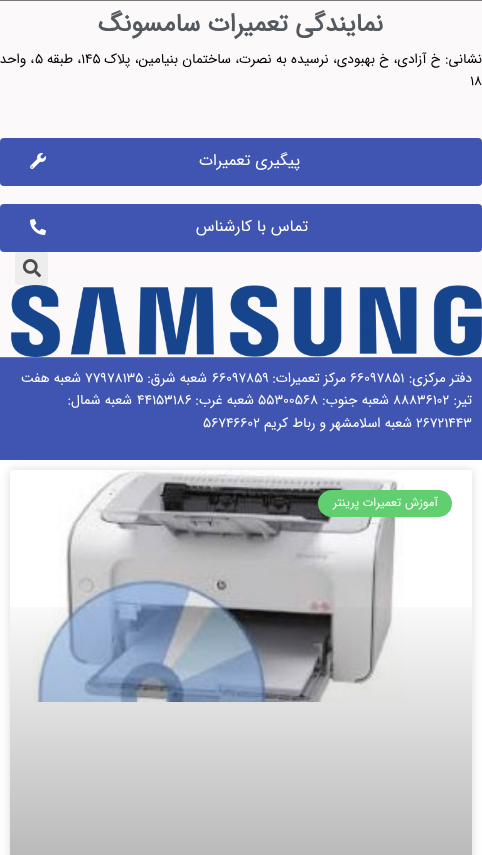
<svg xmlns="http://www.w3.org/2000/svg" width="482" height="855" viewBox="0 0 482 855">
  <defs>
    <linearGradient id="g1" gradientUnits="userSpaceOnUse" x1="241" y1="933" x2="241" y2="470"><stop offset="0" stop-color="rgb(0,0,0)" stop-opacity="0.35"/><stop offset="0.75" stop-color="rgb(0,0,0)" stop-opacity="0"/></linearGradient>
  </defs>
  <rect width="100%" height="100%" fill="rgb(255,255,255)"/>
  <rect x="0" y="1" width="482" height="356" fill="rgb(251,249,249)"/>
  <rect x="0" y="0" width="482" height="1" fill="rgb(122,122,122)"/>
  <rect x="0" y="357" width="482" height="1" fill="rgb(122,122,122)"/>
  <g font-family="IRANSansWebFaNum" font-size="25" font-weight="bold" direction="rtl" fill="rgb(84,89,95)">
    <text x="383" y="31">نمایندگی</text>
    <text x="288" y="31">تعمیرات سامسونگ</text>
  </g>
  <text x="482" y="63" word-spacing="0.25" font-family="IRANSansWebFaNum" font-size="13.7" direction="rtl" fill="rgb(0,0,0)">نشانی: خ آزادی، خ بهبودی، نرسیده به نصرت، ساختمان بنیامین، پلاک</text>
  <text x="81" y="63" font-family="IRANSansWebFaNum" font-size="13.7" fill="rgb(0,0,0)">145</text>
  <text x="81" y="63" font-family="IRANSansWebFaNum" font-size="13.7" direction="rtl" fill="rgb(0,0,0)">، طبقه</text>
  <text x="35" y="63" font-family="IRANSansWebFaNum" font-size="13.7" fill="rgb(0,0,0)">5</text>
  <text x="34" y="63" font-family="IRANSansWebFaNum" font-size="13.7" direction="rtl" fill="rgb(0,0,0)">، واحد</text>
  <text x="470" y="85" font-family="IRANSansWebFaNum" font-size="13.7" fill="rgb(0,0,0)">18</text>
  <rect x="0" y="138" width="482" height="48" rx="4" fill="rgb(64,84,178)"/>
  <text x="300" y="165" font-family="IRANSansWebFaNum" font-size="16" direction="rtl" fill="rgb(255,255,255)">پیگیری تعمیرات</text>
  <image x="30" y="153" width="16" height="16" href="pic1.png"/>
  <rect x="0" y="204" width="482" height="48" rx="4" fill="rgb(64,84,178)"/>
  <text x="308" y="231" font-family="IRANSansWebFaNum" font-size="16" direction="rtl" fill="rgb(255,255,255)">تماس با کارشناس</text>
  <image x="30" y="219" width="16" height="16" href="pic2.png"/>
  <rect x="15" y="252" width="33" height="33" rx="3" fill="rgb(238,237,237)"/>
  <image x="22" y="259" width="19" height="19" href="pic3.png"/>
  <image x="11" y="285" width="471" height="72" href="pic4.png"/>
  <rect x="0" y="358" width="482" height="102" fill="rgb(64,84,178)"/>
  <text x="472" y="382" font-family="IRANSansWebFaNum" font-size="13.7" direction="rtl" fill="rgb(255,255,255)">دفتر مرکزی:</text>
  <text x="350" y="382" font-family="IRANSansWebFaNum" font-size="13.7" fill="rgb(255,255,255)">66097851</text>
  <text x="346" y="382" font-family="IRANSansWebFaNum" font-size="13.7" direction="rtl" fill="rgb(255,255,255)">مرکز تعمیرات:</text>
  <text x="212" y="382" font-family="IRANSansWebFaNum" font-size="13.7" fill="rgb(255,255,255)">66097859</text>
  <text x="207" y="382" font-family="IRANSansWebFaNum" font-size="13.7" direction="rtl" fill="rgb(255,255,255)">شعبه شرق:</text>
  <text x="85" y="382" font-family="IRANSansWebFaNum" font-size="13.7" fill="rgb(255,255,255)">77978135</text>
  <g font-family="IRANSansWebFaNum" font-size="13.7" direction="rtl" fill="rgb(255,255,255)">
    <text x="81" y="382">شعبه هفت</text>
    <text x="472" y="404">تیر:</text>
  </g>
  <text x="393" y="404" font-family="IRANSansWebFaNum" font-size="13.7" fill="rgb(255,255,255)">88836102</text>
  <text x="389" y="404" font-family="IRANSansWebFaNum" font-size="13.7" direction="rtl" fill="rgb(255,255,255)">شعبه جنوب:</text>
  <text x="258" y="404" font-family="IRANSansWebFaNum" font-size="13.7" fill="rgb(255,255,255)">55300568</text>
  <text x="254" y="404" font-family="IRANSansWebFaNum" font-size="13.7" direction="rtl" fill="rgb(255,255,255)">شعبه غرب:</text>
  <text x="137" y="404" font-family="IRANSansWebFaNum" font-size="13.7" fill="rgb(255,255,255)">44153186</text>
  <text x="132" y="404" font-family="IRANSansWebFaNum" font-size="13.7" direction="rtl" fill="rgb(255,255,255)">شعبه شمال:</text>
  <text x="416" y="427" font-family="IRANSansWebFaNum" font-size="13.7" fill="rgb(255,255,255)">26721443</text>
  <text x="412" y="427" font-family="IRANSansWebFaNum" font-size="13.7" direction="rtl" fill="rgb(255,255,255)">شعبه اسلامشهر و رباط کریم</text>
  <text x="203" y="427" font-family="IRANSansWebFaNum" font-size="13.7" fill="rgb(255,255,255)">56746602</text>
  <rect x="10" y="470" width="462" height="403" rx="3" fill="rgba(0,0,0,0.15)" filter="blur(5px)"/>
  <rect x="10" y="470" width="462" height="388" rx="3" fill="rgb(255,255,255)"/>
  <image x="33" y="470" width="371" height="232" href="pic5.png"/>
  <rect x="10" y="607" width="462" height="248" fill="url(#g1)"/>
  <rect x="318" y="490" width="134" height="27" rx="13.5" fill="rgb(97,206,112)"/>
  <text x="438" y="506" font-family="IRANSansWebFaNum" font-size="12" direction="rtl" fill="rgb(255,255,255)">آموزش تعمیرات پرینتر</text>
</svg>
